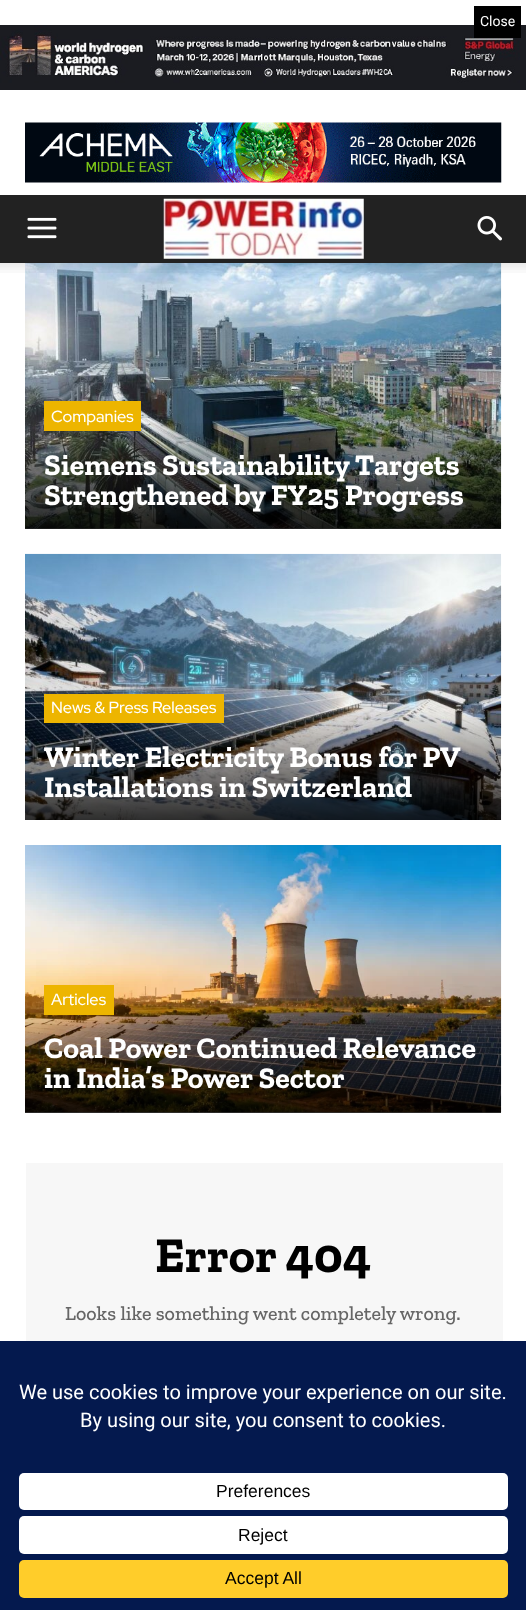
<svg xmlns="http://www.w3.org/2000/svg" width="526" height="1610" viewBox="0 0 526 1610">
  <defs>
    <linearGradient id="g1" gradientUnits="userSpaceOnUse" x1="263" y1="529" x2="263" y2="263"><stop offset="0" stop-color="rgb(0,0,0)" stop-opacity="0.8"/><stop offset="0.41" stop-color="rgb(0,0,0)" stop-opacity="0"/><stop offset="1" stop-color="rgb(0,0,0)" stop-opacity="0"/></linearGradient>
    <linearGradient id="g2" gradientUnits="userSpaceOnUse" x1="263" y1="1113" x2="263" y2="845"><stop offset="0" stop-color="rgb(0,0,0)" stop-opacity="0.8"/><stop offset="0.41" stop-color="rgb(0,0,0)" stop-opacity="0"/><stop offset="1" stop-color="rgb(0,0,0)" stop-opacity="0"/></linearGradient>
  </defs>
  <rect width="100%" height="100%" fill="rgb(255,255,255)"/>
  <image x="0" y="25" width="526" height="65" href="pic1.png"/>
  <rect x="474" y="6" width="47" height="32" fill="rgb(0,0,0)"/>
  <text x="480" y="26" font-family="Roboto" font-size="14" fill="rgb(255,255,255)">Close</text>
  <image x="25" y="122" width="477" height="61" href="pic2.png"/>
  <rect x="0" y="195" width="526" height="68" fill="rgb(34,34,34)"/>
  <image x="27" y="217" width="30" height="22" href="pic3.png"/>
  <image x="163" y="198" width="201" height="61" href="pic4.png"/>
  <image x="477" y="216" width="25" height="25" href="pic5.png"/>
  <image x="25" y="263" width="477" height="266" href="pic7.png"/>
  <image x="0" y="263" width="526" height="10" href="pic6.png"/>
  <rect x="25" y="423" width="476" height="106" fill="url(#g1)"/>
  <rect x="44" y="401" width="97" height="30" fill="rgb(237,181,0)"/>
  <text x="51" y="422" font-family="Red Hat Display" font-size="16.25" font-weight="500" fill="rgb(255,255,255)">Companies</text>
  <g font-family="Zilla Slab" font-size="30" font-weight="bold" fill="rgb(255,255,255)">
    <text>
      <tspan x="44" y="475">Siemens Sustainability Targets</tspan>
      <tspan x="44" y="505">Strengthened by FY25 Progress</tspan>
    </text>
  </g>
  <image x="25" y="553" width="477" height="267" href="pic8.png"/>
  <rect x="44" y="694" width="180" height="29" fill="rgb(237,181,0)"/>
  <text x="51" y="713" font-family="Red Hat Display" font-size="16.25" font-weight="500" fill="rgb(255,255,255)">News &amp; Press Releases</text>
  <g font-family="Zilla Slab" font-size="30" font-weight="bold" fill="rgb(255,255,255)">
    <text>
      <tspan x="44" y="767">Winter Electricity Bonus for PV</tspan>
      <tspan x="44" y="797">Installations in Switzerland</tspan>
    </text>
  </g>
  <image x="25" y="845" width="477" height="268" href="pic9.png"/>
  <rect x="25" y="1006" width="476" height="107" fill="url(#g2)"/>
  <rect x="44" y="985" width="70" height="30" fill="rgb(237,181,0)"/>
  <text x="51" y="1005" font-family="Red Hat Display" font-size="16.25" font-weight="500" fill="rgb(255,255,255)">Articles</text>
  <g font-family="Zilla Slab" font-size="30" font-weight="bold" fill="rgb(255,255,255)">
    <text>
      <tspan x="44" y="1058">Coal Power Continued Relevance</tspan>
      <tspan x="44" y="1088">in India’s Power Sector</tspan>
    </text>
  </g>
  <rect x="26" y="1163" width="477" height="178" fill="rgb(247,247,247)"/>
  <text x="155" y="1272" font-family="Zilla Slab" font-size="50" font-weight="bold" fill="rgb(0,0,0)">Error 404</text>
  <text x="65" y="1320" font-family="Zilla Slab" font-size="20" font-weight="500" fill="rgb(102,102,102)">Looks like something went completely wrong.</text>
  <rect x="0" y="1341" width="526" height="269" fill="rgb(4,25,78)"/>
  <g font-family="Roboto" font-size="20" fill="rgb(255,255,255)">
    <text x="19" y="1399">We use cookies to improve your experience on our site.</text>
    <text x="80" y="1427">By using our site, you consent to cookies.</text>
  </g>
  <rect x="19" y="1473" width="489" height="37" rx="5" fill="rgb(255,255,255)"/>
  <text x="216" y="1497" font-family="Liberation Sans" font-size="17.5" fill="rgb(0,0,0)">Preferences</text>
  <rect x="19" y="1516" width="489" height="38" rx="5" fill="rgb(255,255,255)"/>
  <text x="238" y="1541" font-family="Liberation Sans" font-size="17.5" fill="rgb(0,0,0)">Reject</text>
  <rect x="19" y="1560" width="489" height="38" rx="5" fill="rgb(255,205,42)"/>
  <text x="225" y="1584" font-family="Liberation Sans" font-size="17.5" fill="rgb(0,0,0)">Accept All</text>
</svg>
